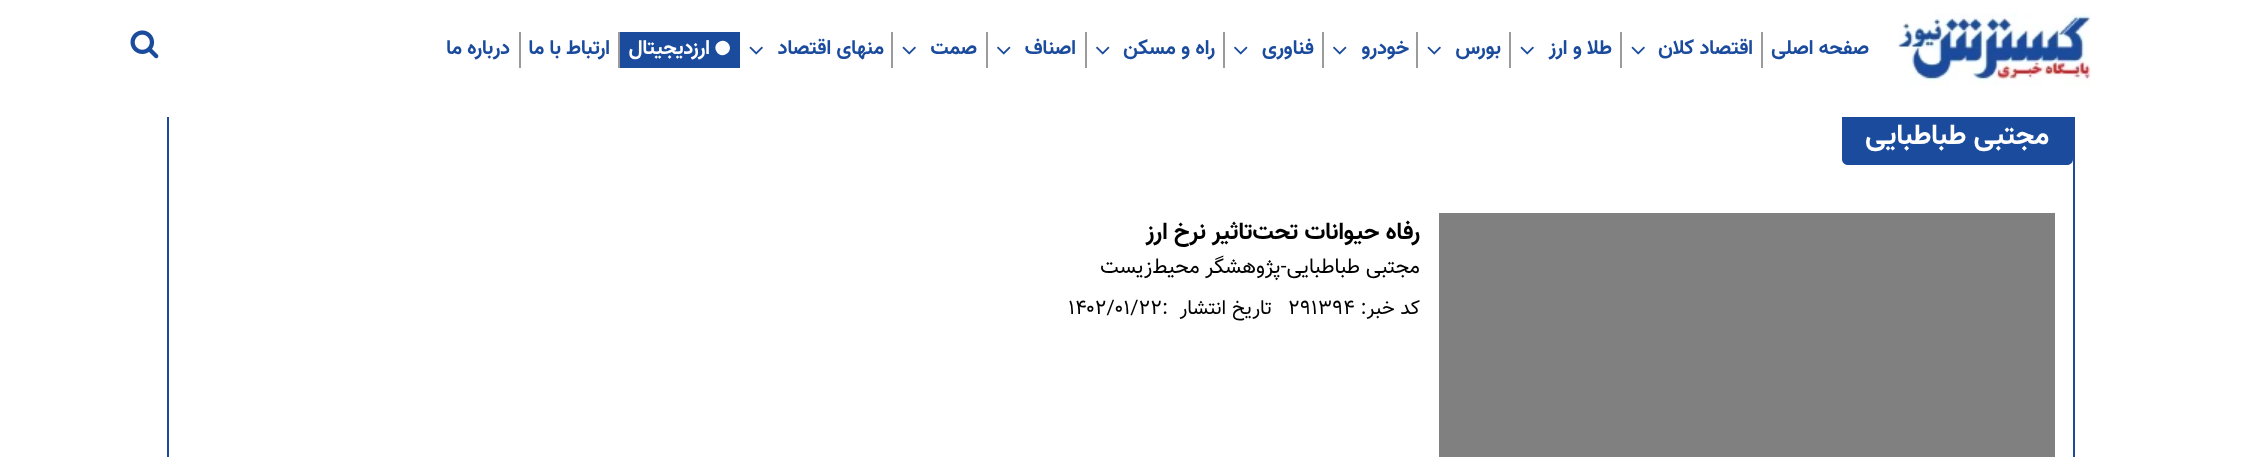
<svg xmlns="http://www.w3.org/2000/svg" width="2241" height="457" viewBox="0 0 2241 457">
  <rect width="100%" height="100%" fill="rgb(255,255,255)"/>
  <rect x="168" y="108" width="1906" height="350" fill="none" stroke="rgb(27,75,157)" stroke-width="2"/>
  <path d="M1842 108H2073V159C2073 162.5 2070.5 165 2067 165H1848C1844.5 165 1842 162.5 1842 159Z" fill="rgb(27,75,157)"/>
  <rect x="167" y="107" width="1908" height="10" fill="rgb(255,255,255)"/>
  <image x="1898" y="13" width="193" height="73" href="pic1.png"/>
  <rect x="1761" y="32" width="2" height="36" fill="rgb(155,155,155)"/>
  <text x="1869" y="54" font-family="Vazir" font-size="20.5" font-weight="bold" direction="rtl" fill="rgb(27,75,157)">صفحه اصلی</text>
  <rect x="1620" y="32" width="2" height="36" fill="rgb(155,155,155)"/>
  <text x="1753" y="54" font-family="Vazir" font-size="20.5" font-weight="bold" direction="rtl" fill="rgb(27,75,157)">اقتصاد کلان</text>
  <image x="1631" y="46" width="14" height="9" href="pic2.png"/>
  <rect x="1509" y="32" width="2" height="36" fill="rgb(155,155,155)"/>
  <text x="1612" y="54" font-family="Vazir" font-size="20.5" font-weight="bold" direction="rtl" fill="rgb(27,75,157)">طلا و ارز</text>
  <image x="1520" y="46" width="14" height="9" href="pic2.png"/>
  <rect x="1416" y="32" width="2" height="36" fill="rgb(155,155,155)"/>
  <text x="1501" y="54" font-family="Vazir" font-size="20.5" font-weight="bold" direction="rtl" fill="rgb(27,75,157)">بورس</text>
  <image x="1427" y="46" width="14" height="9" href="pic2.png"/>
  <rect x="1322" y="32" width="2" height="36" fill="rgb(155,155,155)"/>
  <text x="1409" y="54" font-family="Vazir" font-size="20.5" font-weight="bold" direction="rtl" fill="rgb(27,75,157)">خودرو</text>
  <image x="1333" y="46" width="14" height="9" href="pic3.png"/>
  <rect x="1223" y="32" width="2" height="36" fill="rgb(155,155,155)"/>
  <text x="1314" y="54" font-family="Vazir" font-size="20.5" font-weight="bold" direction="rtl" fill="rgb(27,75,157)">فناوری</text>
  <image x="1234" y="46" width="14" height="9" href="pic3.png"/>
  <rect x="1085" y="32" width="2" height="36" fill="rgb(155,155,155)"/>
  <text x="1215" y="54" font-family="Vazir" font-size="20.5" font-weight="bold" direction="rtl" fill="rgb(27,75,157)">راه و مسکن</text>
  <image x="1096" y="46" width="14" height="9" href="pic3.png"/>
  <rect x="986" y="32" width="2" height="36" fill="rgb(155,155,155)"/>
  <text x="1076" y="54" font-family="Vazir" font-size="20.5" font-weight="bold" direction="rtl" fill="rgb(27,75,157)">اصناف</text>
  <image x="997" y="46" width="14" height="9" href="pic3.png"/>
  <rect x="891" y="32" width="2" height="36" fill="rgb(155,155,155)"/>
  <text x="977" y="54" font-family="Vazir" font-size="20.5" font-weight="bold" direction="rtl" fill="rgb(27,75,157)">صمت</text>
  <image x="902" y="46" width="14" height="9" href="pic2.png"/>
  <text x="884" y="54" font-family="Vazir" font-size="20.5" font-weight="bold" direction="rtl" fill="rgb(27,75,157)">منهای اقتصاد</text>
  <image x="749" y="46" width="14" height="9" href="pic2.png"/>
  <rect x="620" y="32" width="120" height="36" fill="rgb(27,75,157)"/>
  <rect x="618" y="32" width="2" height="36" fill="rgb(155,155,155)"/>
  <path d="M729 44.5C733.5 52.5 721 60 716.5 51.5C711.5 43.5 724 36 729 44.5Z" fill="rgb(255,255,255)"/>
  <text x="710" y="54" font-family="Vazir" font-size="20.5" font-weight="bold" direction="rtl" fill="rgb(255,255,255)">ارزدیجیتال</text>
  <rect x="519" y="32" width="2" height="36" fill="rgb(155,155,155)"/>
  <g font-family="Vazir" font-size="20.5" font-weight="bold" direction="rtl" fill="rgb(27,75,157)">
    <text x="610" y="54">ارتباط با ما</text>
    <text x="510" y="54">درباره ما</text>
  </g>
  <image x="130" y="30" width="29" height="29" href="pic4.png"/>
  <text x="2049" y="144" font-family="Vazir" font-size="28.5" font-weight="bold" direction="rtl" fill="rgb(255,255,255)">مجتبی طباطبایی</text>
  <rect x="1439" y="213" width="616" height="244" fill="rgb(128,128,128)"/>
  <text x="1420" y="239" font-family="Vazir" font-size="24" font-weight="bold" direction="rtl" fill="rgb(0,0,0)">رفاه حیوانات تحت‌تاثیر نرخ ارز</text>
  <text x="1420" y="273" font-family="Vazir" font-size="21" direction="rtl" fill="rgb(0,0,0)">مجتبی طباطبایی-پژوهشگر محیط‌زیست</text>
  <text x="1420" y="314" font-family="Vazir" font-size="20" direction="rtl" fill="rgb(0,0,0)">کد خبر:</text>
  <text x="1288" y="314" font-family="Vazir" font-size="20" fill="rgb(0,0,0)">۲۹۱۳۹۴</text>
  <text x="1272" y="314" font-family="Vazir" font-size="20" direction="rtl" fill="rgb(0,0,0)">تاریخ انتشار</text>
  <text x="1068" y="314" font-family="Vazir" font-size="20" fill="rgb(0,0,0)">۱۴۰۲/۰۱/۲۲:</text>
</svg>
